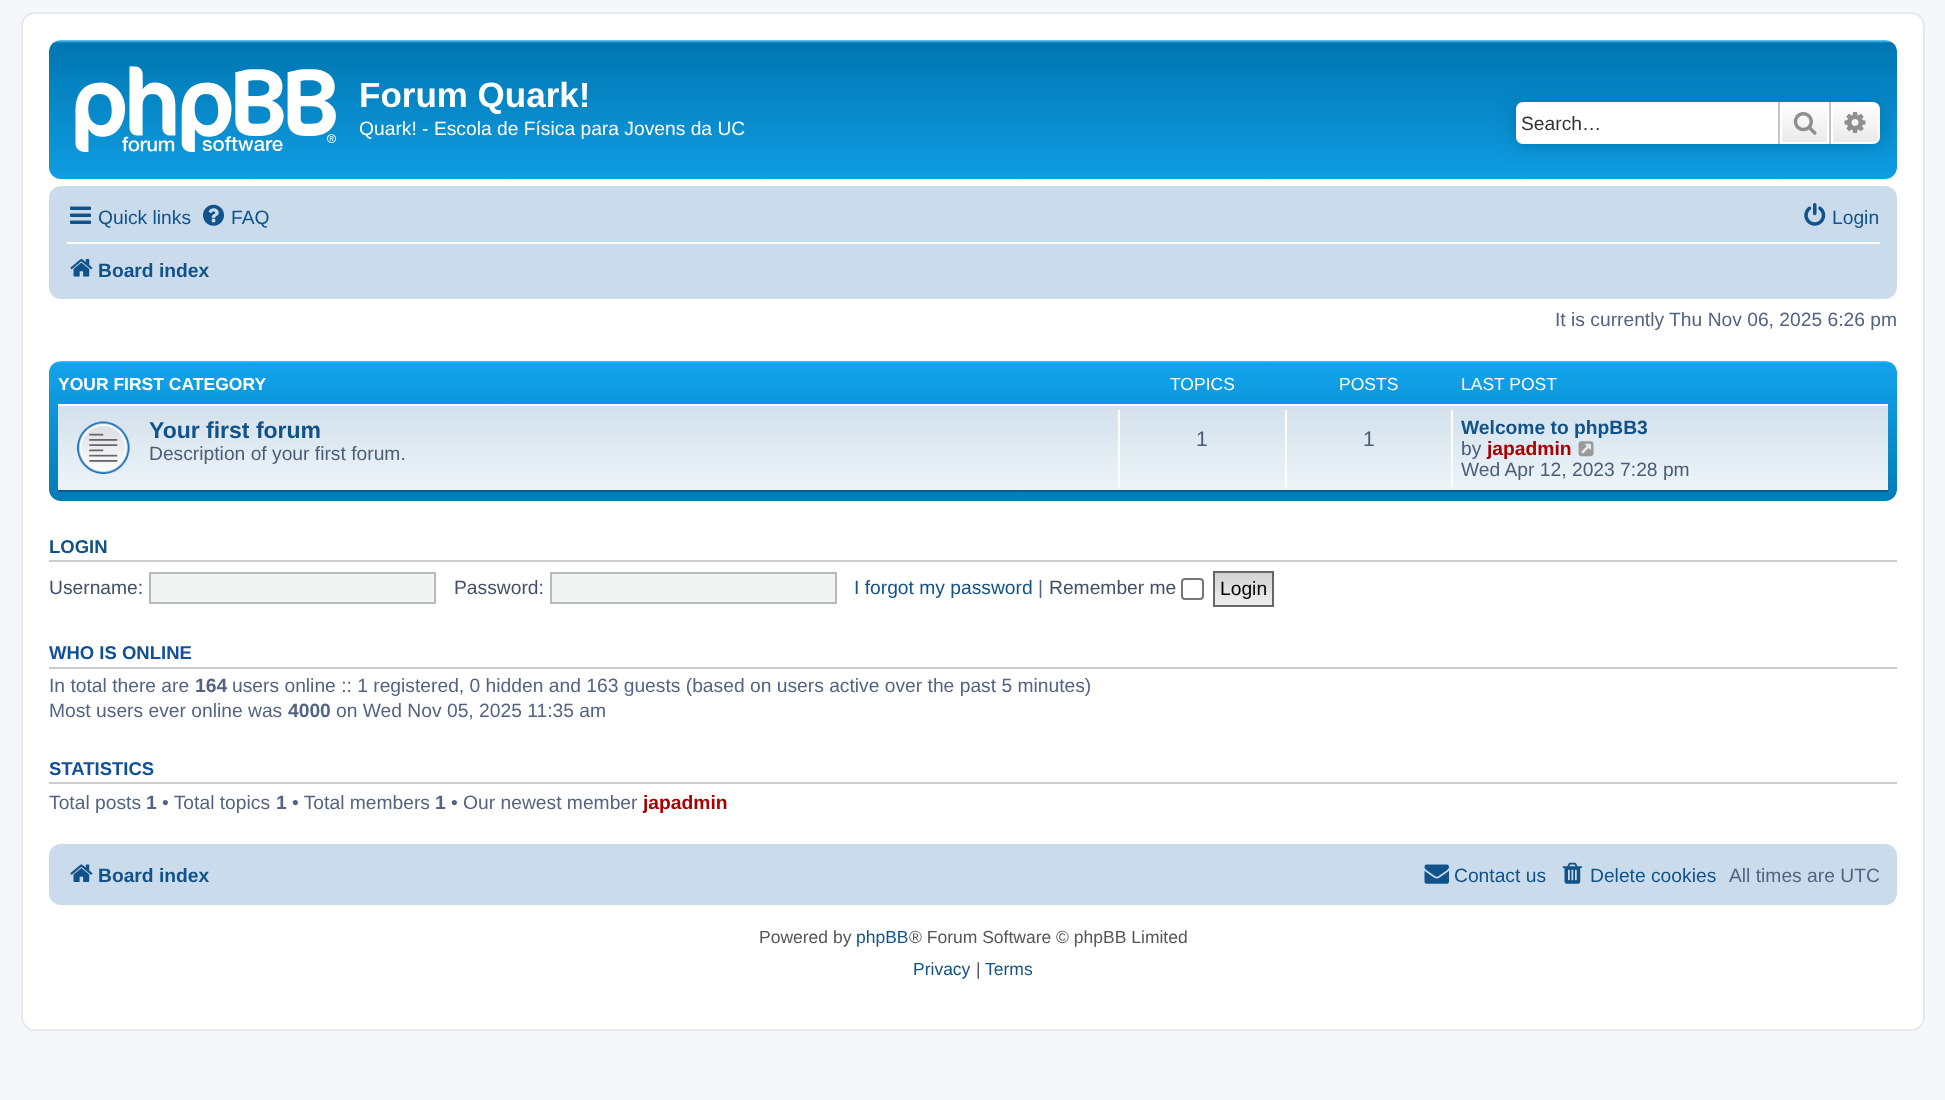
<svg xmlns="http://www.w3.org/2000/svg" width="1945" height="1100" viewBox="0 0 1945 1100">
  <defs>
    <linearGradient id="g1" gradientUnits="userSpaceOnUse" x1="973" y1="40" x2="973" y2="201"><stop offset="0" stop-color="rgb(106,206,255)"/><stop offset="0.02" stop-color="rgb(0,118,177)"/><stop offset="1" stop-color="rgb(18,163,235)"/></linearGradient>
    <linearGradient id="g2" gradientUnits="userSpaceOnUse" x1="1804" y1="102" x2="1804" y2="144"><stop offset="0" stop-color="rgb(255,255,255)"/><stop offset="1" stop-color="rgb(233,233,233)"/></linearGradient>
    <linearGradient id="g3" gradientUnits="userSpaceOnUse" x1="1855" y1="102" x2="1855" y2="144"><stop offset="0" stop-color="rgb(255,255,255)"/><stop offset="1" stop-color="rgb(233,233,233)"/></linearGradient>
    <linearGradient id="g4" gradientUnits="userSpaceOnUse" x1="973" y1="360" x2="973" y2="521"><stop offset="0" stop-color="rgb(106,206,255)"/><stop offset="0.02" stop-color="rgb(18,163,235)"/><stop offset="1" stop-color="rgb(0,118,177)"/></linearGradient>
    <linearGradient id="g5" gradientUnits="userSpaceOnUse" x1="973" y1="404" x2="973" y2="492"><stop offset="0" stop-color="rgb(210,224,235)"/><stop offset="1" stop-color="rgb(238,245,249)"/></linearGradient>
    <linearGradient id="g6" gradientUnits="userSpaceOnUse" x1="1243" y1="572" x2="1243" y2="606"><stop offset="0" stop-color="rgb(210,210,210)"/><stop offset="1" stop-color="rgb(239,239,239)"/></linearGradient>
  </defs>
  <rect width="100%" height="100%" fill="rgb(245,247,250)"/>
  <rect x="22" y="13" width="1902" height="1017" rx="13" fill="rgb(255,255,255)" stroke="rgb(230,233,237)" stroke-width="2"/>
  <rect x="49" y="40" width="1848" height="139" rx="12" fill="url(#g1)"/>
  <image x="75" y="66" width="261" height="86" href="pic1.png"/>
  <text x="359" y="107" font-family="Liberation Sans" font-size="35" font-weight="bold" fill="rgb(255,255,255)">Forum Quark!</text>
  <text x="359" y="135" font-family="Liberation Sans" font-size="19.25" fill="rgb(255,255,255)">Quark! - Escola de Física para Jovens da UC</text>
  <rect x="1516" y="102" width="364" height="42" rx="7" fill="rgb(0,117,176)" filter="blur(9px)"/>
  <path d="M1523 102H1778V144H1523C1519 144 1516 141 1516 137V109C1516 105 1519 102 1523 102Z" fill="rgb(255,255,255)"/>
  <text x="1521" y="130" font-family="Liberation Sans" font-size="19.25" fill="rgb(51,51,51)">Search…</text>
  <rect x="1782" y="104" width="45" height="38" fill="url(#g2)"/>
  <rect x="1781" y="103" width="47" height="40" fill="none" stroke="rgb(255,255,255)" stroke-width="2"/>
  <rect x="1829" y="102" width="2" height="42" fill="rgb(199,195,191)"/>
  <rect x="1778" y="102" width="2" height="42" fill="rgb(199,195,191)"/>
  <image x="1793" y="112" width="24" height="23" href="pic2.png"/>
  <path d="M1832 103H1873C1876.5 103 1879 105.5 1879 109V137C1879 140.5 1876.5 143 1873 143H1832Z" fill="url(#g3)" stroke="rgb(255,255,255)" stroke-width="2"/>
  <image x="1844" y="112" width="22" height="21" href="pic3.png"/>
  <rect x="49" y="186" width="1848" height="113" rx="12" fill="rgb(202,220,235)"/>
  <image x="70" y="206" width="21" height="18" href="pic4.png"/>
  <text x="98" y="224" font-family="Liberation Sans" font-size="19.25" fill="rgb(16,82,137)">Quick links</text>
  <image x="203" y="204" width="21" height="22" href="pic5.png"/>
  <text x="231" y="224" font-family="Liberation Sans" font-size="19.25" fill="rgb(16,82,137)">FAQ</text>
  <image x="1804" y="203" width="22" height="23" href="pic6.png"/>
  <text x="1832" y="224" font-family="Liberation Sans" font-size="19.25" fill="rgb(16,82,137)">Login</text>
  <rect x="67" y="242" width="1813" height="2" fill="rgb(255,255,255)"/>
  <image x="70" y="259" width="23" height="18" href="pic7.png"/>
  <text x="98" y="277" font-family="Liberation Sans" font-size="19.25" font-weight="bold" fill="rgb(16,82,137)">Board index</text>
  <text x="1555" y="326" font-family="Liberation Sans" font-size="19.25" fill="rgb(83,100,130)">It is currently Thu Nov 06, 2025 6:26 pm</text>
  <rect x="49" y="361" width="1848" height="140" rx="12" fill="url(#g4)"/>
  <text x="58" y="390" font-family="Liberation Sans" font-size="17.5" font-weight="bold" fill="rgb(255,255,255)">YOUR FIRST CATEGORY</text>
  <g font-family="Liberation Sans" font-size="17.5" fill="rgb(255,255,255)">
    <text x="1170" y="390">TOPICS</text>
    <text x="1339" y="390">POSTS</text>
    <text x="1461" y="390">LAST POST</text>
  </g>
  <rect x="58" y="406" width="1830" height="84" fill="url(#g5)"/>
  <rect x="58" y="404" width="1830" height="2" fill="rgb(255,255,255)"/>
  <rect x="58" y="490" width="1830" height="2" fill="rgb(0,96,143)"/>
  <image x="77" y="421" width="53" height="53" href="pic8.png"/>
  <text x="149" y="438" font-family="Liberation Sans" font-size="23" font-weight="bold" fill="rgb(16,82,137)">Your first forum</text>
  <text x="149" y="460" font-family="Liberation Sans" font-size="19.25" fill="rgb(76,93,119)">Description of your first forum.</text>
  <rect x="1118" y="410" width="2" height="77" fill="rgb(255,255,255)"/>
  <text x="1196" y="446" font-family="Liberation Sans" font-size="21" fill="rgb(76,93,119)">1</text>
  <rect x="1285" y="410" width="2" height="77" fill="rgb(255,255,255)"/>
  <text x="1363" y="446" font-family="Liberation Sans" font-size="21" fill="rgb(76,93,119)">1</text>
  <rect x="1451" y="410" width="2" height="77" fill="rgb(255,255,255)"/>
  <text x="1461" y="434" font-family="Liberation Sans" font-size="19.25" font-weight="bold" fill="rgb(16,82,137)">Welcome to phpBB3</text>
  <text x="1461" y="455" font-family="Liberation Sans" font-size="19.25" fill="rgb(76,93,119)">by</text>
  <text x="1487" y="455" font-family="Liberation Sans" font-size="19.25" font-weight="bold" fill="rgb(170,0,0)">japadmin</text>
  <image x="1578" y="441" width="16" height="16" href="pic9.png"/>
  <text x="1461" y="476" font-family="Liberation Sans" font-size="19.25" fill="rgb(76,93,119)">Wed Apr 12, 2023 7:28 pm</text>
  <rect x="49" y="560" width="1848" height="2" fill="rgb(204,204,204)"/>
  <text x="49" y="553" font-family="Liberation Sans" font-size="18.5" font-weight="bold" fill="rgb(16,82,137)">LOGIN</text>
  <text x="49" y="594" font-family="Liberation Sans" font-size="19.25" fill="rgb(66,80,103)">Username:</text>
  <rect x="150" y="573" width="285" height="30" fill="rgb(242,243,243)" stroke="rgb(180,186,192)" stroke-width="2"/>
  <text x="454" y="594" font-family="Liberation Sans" font-size="19.25" fill="rgb(66,80,103)">Password:</text>
  <rect x="551" y="573" width="285" height="30" fill="rgb(242,243,243)" stroke="rgb(180,186,192)" stroke-width="2"/>
  <text x="854" y="594" font-family="Liberation Sans" font-size="19.25" fill="rgb(16,82,137)">I forgot my password</text>
  <text x="1038" y="594" font-family="Liberation Sans" font-size="19.25" fill="rgb(83,100,130)">|</text>
  <text x="1049" y="594" font-family="Liberation Sans" font-size="19.25" fill="rgb(66,80,103)">Remember me</text>
  <rect x="1182" y="579" width="21" height="20" rx="3" fill="none" stroke="rgb(118,118,118)" stroke-width="2"/>
  <rect x="1215" y="573" width="57" height="32" fill="url(#g6)"/>
  <rect x="1214" y="572" width="59" height="34" fill="none" stroke="rgb(102,102,102)" stroke-width="2"/>
  <text x="1220" y="595" font-family="Liberation Sans" font-size="19.25" fill="rgb(0,0,0)">Login</text>
  <rect x="49" y="667" width="1848" height="2" fill="rgb(204,204,204)"/>
  <text x="49" y="659" font-family="Liberation Sans" font-size="18.5" font-weight="bold" fill="rgb(17,80,152)">WHO IS ONLINE</text>
  <text x="49" y="692" font-family="Liberation Sans" font-size="19.25" fill="rgb(83,100,130)">In total there are</text>
  <text x="195" y="692" font-family="Liberation Sans" font-size="19.25" font-weight="bold" fill="rgb(83,100,130)">164</text>
  <g font-family="Liberation Sans" font-size="19.25" fill="rgb(83,100,130)">
    <text x="232" y="692">users online :: 1 registered, 0 hidden and 163 guests (based on users active over the past 5 minutes)</text>
    <text x="49" y="717">Most users ever online was</text>
  </g>
  <text x="288" y="717" font-family="Liberation Sans" font-size="19.25" font-weight="bold" fill="rgb(83,100,130)">4000</text>
  <text x="336" y="717" font-family="Liberation Sans" font-size="19.25" fill="rgb(83,100,130)">on Wed Nov 05, 2025 11:35 am</text>
  <rect x="49" y="782" width="1848" height="2" fill="rgb(204,204,204)"/>
  <text x="49" y="775" font-family="Liberation Sans" font-size="18.5" font-weight="bold" fill="rgb(17,80,152)">STATISTICS</text>
  <text x="49" y="809" font-family="Liberation Sans" font-size="19.25" fill="rgb(83,100,130)">Total posts</text>
  <text x="146" y="809" font-family="Liberation Sans" font-size="19.25" font-weight="bold" fill="rgb(83,100,130)">1</text>
  <text x="162" y="809" font-family="Liberation Sans" font-size="19.25" fill="rgb(83,100,130)">• Total topics</text>
  <text x="276" y="809" font-family="Liberation Sans" font-size="19.25" font-weight="bold" fill="rgb(83,100,130)">1</text>
  <text x="292" y="809" font-family="Liberation Sans" font-size="19.25" fill="rgb(83,100,130)">• Total members</text>
  <text x="435" y="809" font-family="Liberation Sans" font-size="19.25" font-weight="bold" fill="rgb(83,100,130)">1</text>
  <text x="451" y="809" font-family="Liberation Sans" font-size="19.25" fill="rgb(83,100,130)">• Our newest member</text>
  <text x="643" y="809" font-family="Liberation Sans" font-size="19.25" font-weight="bold" fill="rgb(170,0,0)">japadmin</text>
  <rect x="49" y="844" width="1848" height="61" rx="12" fill="rgb(202,220,235)"/>
  <image x="70" y="864" width="23" height="18" href="pic10.png"/>
  <text x="98" y="882" font-family="Liberation Sans" font-size="19.25" font-weight="bold" fill="rgb(16,82,137)">Board index</text>
  <image x="1424" y="864" width="25" height="20" href="pic11.png"/>
  <text x="1454" y="882" font-family="Liberation Sans" font-size="19.25" fill="rgb(16,82,137)">Contact us</text>
  <image x="1562" y="862" width="20" height="22" href="pic12.png"/>
  <text x="1590" y="882" font-family="Liberation Sans" font-size="19.25" fill="rgb(16,82,137)">Delete cookies</text>
  <text x="1729" y="882" font-family="Liberation Sans" font-size="19.25" fill="rgb(83,100,130)">All times are UTC</text>
  <text x="759" y="943" font-family="Liberation Sans" font-size="17.5" fill="rgb(85,85,85)">Powered by</text>
  <text x="856" y="943" font-family="Liberation Sans" font-size="17.5" fill="rgb(16,82,137)">phpBB</text>
  <text x="909" y="943" font-family="Liberation Sans" font-size="17.5" fill="rgb(85,85,85)">® Forum Software © phpBB Limited</text>
  <text x="913" y="975" font-family="Liberation Sans" font-size="17.5" fill="rgb(16,82,137)">Privacy</text>
  <text x="976" y="975" font-family="Liberation Sans" font-size="17.5" fill="rgb(85,85,85)">|</text>
  <text x="985" y="975" font-family="Liberation Sans" font-size="17.5" fill="rgb(16,82,137)">Terms</text>
</svg>
